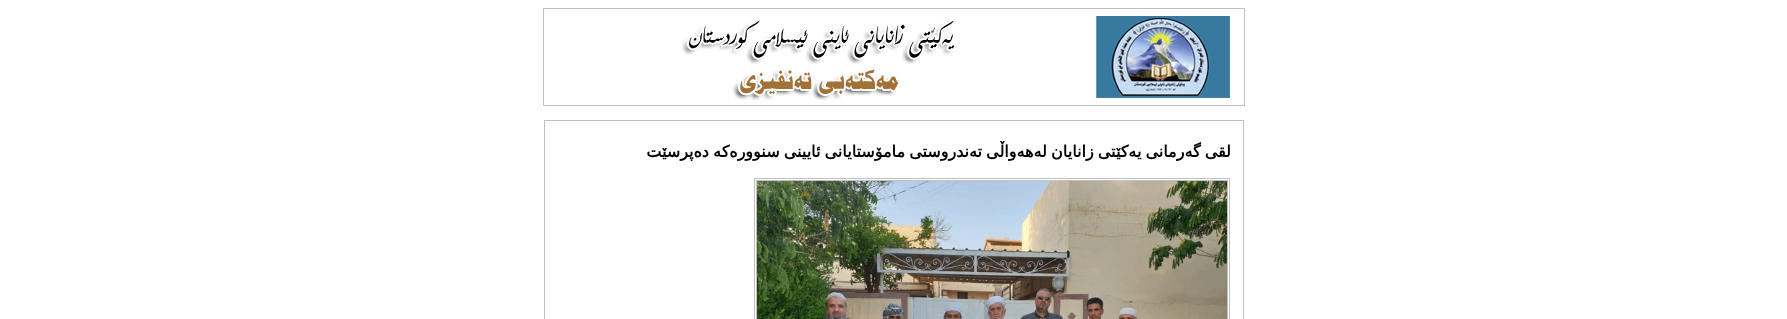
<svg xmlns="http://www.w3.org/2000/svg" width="1787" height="319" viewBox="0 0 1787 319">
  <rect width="100%" height="100%" fill="rgb(255,255,255)"/>
  <rect x="543.5" y="8.5" width="701" height="97" fill="none" stroke="rgb(192,192,192)"/>
  <image x="681" y="15" width="549" height="86" href="pic1.png"/>
  <rect x="544.5" y="120.5" width="699" height="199" fill="none" stroke="rgb(192,192,192)"/>
  <text x="1231" y="157" word-spacing="-1" font-family="DejaVu Sans" font-size="16" font-weight="bold" direction="rtl" fill="rgb(0,0,0)">لقی گەرمانی یەکێتی زانایان لەهەواڵی تەندروستی مامۆستایانی ئایینی سنوورەکە دەپرسێت</text>
  <rect x="754.5" y="178.5" width="475" height="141" fill="none" stroke="rgb(192,192,192)"/>
  <rect x="756.5" y="180.5" width="471" height="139" fill="none" stroke="rgb(192,192,192)"/>
  <image x="757" y="181" width="470" height="138" href="pic2.png"/>
</svg>
